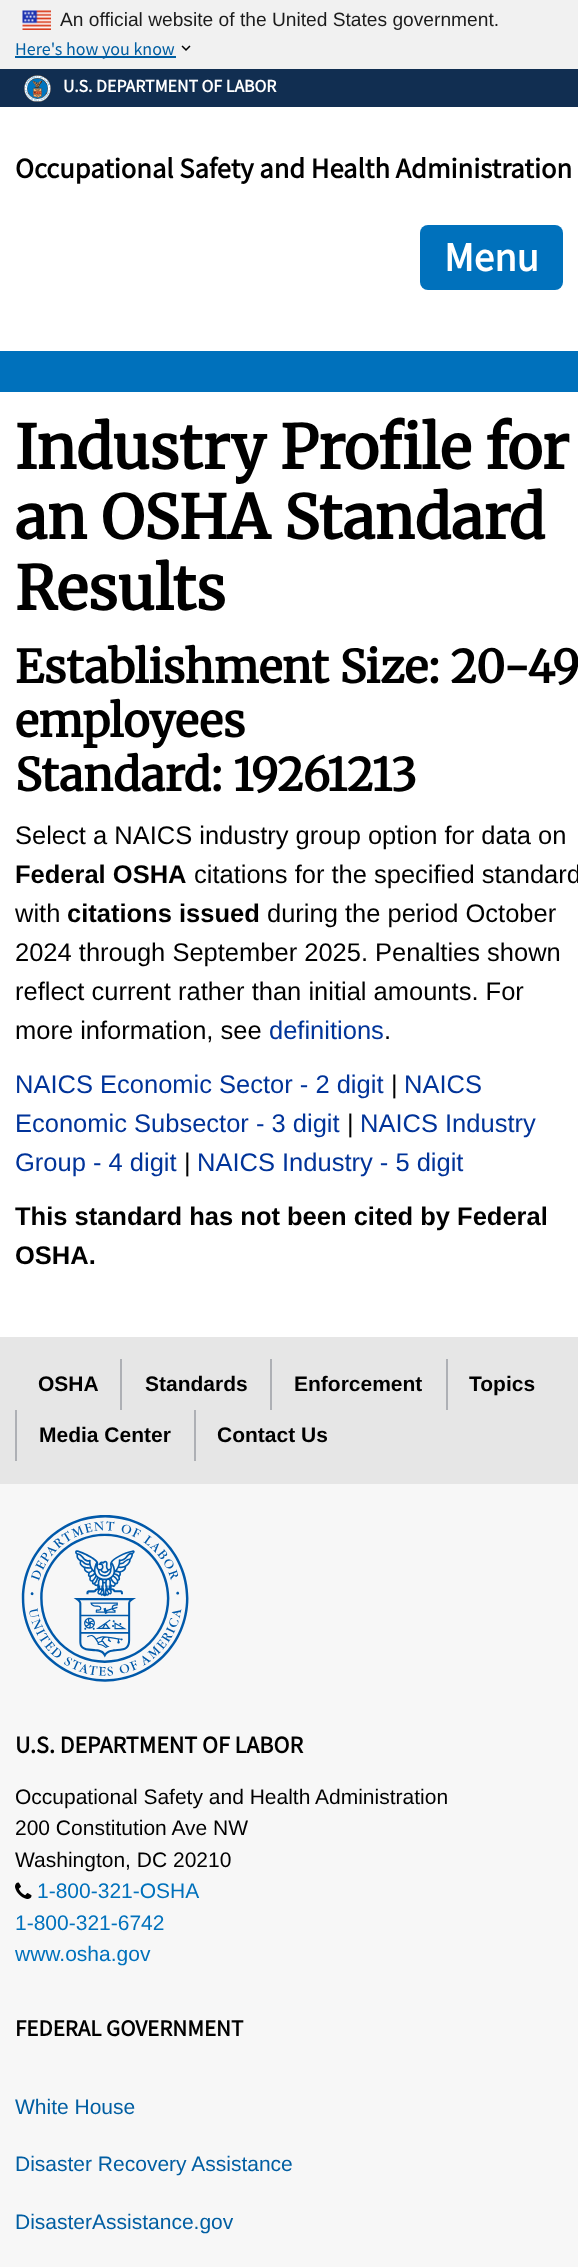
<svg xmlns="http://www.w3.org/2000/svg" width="578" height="2267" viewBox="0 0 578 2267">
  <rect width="100%" height="100%" fill="rgb(255,255,255)"/>
  <rect x="0" y="0" width="578" height="69" fill="rgb(241,241,241)"/>
  <image x="22" y="10" width="29" height="20" href="pic1.png"/>
  <text x="60" y="26" font-family="Liberation Sans" font-size="19.2" fill="rgb(27,27,27)">An official website of the United States government.</text>
  <image x="181" y="45" width="10" height="6" href="pic2.png"/>
  <rect x="15" y="56" width="161" height="2" fill="rgb(0,94,162)"/>
  <text x="15" y="55" font-family="Source Sans Pro" font-size="18" fill="rgb(0,94,162)">Here's how you know</text>
  <rect x="0" y="69" width="578" height="38" fill="rgb(17,46,81)"/>
  <image x="24" y="75" width="27" height="27" href="pic3.png"/>
  <text x="63" y="92" font-family="Source Sans Pro" font-size="17.8" font-weight="bold" fill="rgb(255,255,255)">U.S. DEPARTMENT OF LABOR</text>
  <text x="15" y="178" font-family="Source Sans Pro" font-size="28.5" font-weight="bold" fill="rgb(0,0,0)">Occupational Safety and Health Administration</text>
  <rect x="420" y="225" width="143" height="65" rx="8" fill="rgb(0,113,188)"/>
  <text x="444" y="271" font-family="Source Sans Pro" font-size="41" font-weight="bold" fill="rgb(255,255,255)">Menu</text>
  <rect x="0" y="351" width="578" height="41" fill="rgb(0,113,188)"/>
  <g font-family="Merriweather" font-size="60" font-weight="bold" fill="rgb(0,0,0)">
    <text>
      <tspan x="15" y="469">Industry Profile for</tspan>
      <tspan x="15" y="539">an OSHA Standard</tspan>
      <tspan x="15" y="610">Results</tspan>
    </text>
  </g>
  <g font-family="Merriweather" font-size="45" font-weight="bold" fill="rgb(0,0,0)">
    <text>
      <tspan x="15" y="683">Establishment Size: 20-49</tspan>
      <tspan x="15" y="737">employees</tspan>
      <tspan x="15" y="791">Standard: 19261213</tspan>
    </text>
  </g>
  <text x="15" y="844" font-family="Liberation Sans" font-size="25.5" fill="rgb(0,0,0)">Select a NAICS industry group option for data on</text>
  <text x="15" y="883" font-family="Liberation Sans" font-size="25.5" font-weight="bold" fill="rgb(0,0,0)">Federal OSHA</text>
  <g font-family="Liberation Sans" font-size="25.5" fill="rgb(0,0,0)">
    <text x="194" y="883">citations for the specified standard</text>
    <text x="15" y="922">with</text>
  </g>
  <text x="67" y="922" font-family="Liberation Sans" font-size="25.5" font-weight="bold" fill="rgb(0,0,0)">citations issued</text>
  <g font-family="Liberation Sans" font-size="25.5" fill="rgb(0,0,0)">
    <text x="267" y="922">during the period October</text>
    <text>
      <tspan x="15" y="961">2024 through September 2025. Penalties shown</tspan>
      <tspan x="15" y="1000">reflect current rather than initial amounts. For</tspan>
      <tspan x="15" y="1039">more information, see</tspan>
    </text>
  </g>
  <text x="269" y="1039" font-family="Liberation Sans" font-size="25.5" fill="rgb(0,51,153)">definitions</text>
  <text x="384" y="1039" font-family="Liberation Sans" font-size="25.5" fill="rgb(0,0,0)">.</text>
  <text x="15" y="1093" font-family="Liberation Sans" font-size="25.5" fill="rgb(0,51,153)">NAICS Economic Sector - 2 digit</text>
  <text x="391" y="1093" font-family="Liberation Sans" font-size="25.5" fill="rgb(0,0,0)">|</text>
  <g font-family="Liberation Sans" font-size="25.5" fill="rgb(0,51,153)">
    <text x="404" y="1093">NAICS</text>
    <text x="15" y="1132">Economic Subsector - 3 digit</text>
  </g>
  <text x="347" y="1132" font-family="Liberation Sans" font-size="25.5" fill="rgb(0,0,0)">|</text>
  <g font-family="Liberation Sans" font-size="25.5" fill="rgb(0,51,153)">
    <text x="360" y="1132">NAICS Industry</text>
    <text x="15" y="1171">Group - 4 digit</text>
  </g>
  <text x="184" y="1171" font-family="Liberation Sans" font-size="25.5" fill="rgb(0,0,0)">|</text>
  <text x="197" y="1171" font-family="Liberation Sans" font-size="25.5" fill="rgb(0,51,153)">NAICS Industry - 5 digit</text>
  <g font-family="Liberation Sans" font-size="25.5" font-weight="bold" fill="rgb(0,0,0)">
    <text>
      <tspan x="15" y="1225">This standard has not been cited by Federal</tspan>
      <tspan x="15" y="1264">OSHA.</tspan>
    </text>
  </g>
  <rect x="0" y="1337" width="578" height="147" fill="rgb(230,230,230)"/>
  <text x="38" y="1391" font-family="Liberation Sans" font-size="21" font-weight="bold" fill="rgb(0,0,0)">OSHA</text>
  <rect x="120" y="1359" width="2" height="51" fill="rgb(174,176,181)"/>
  <text x="145" y="1391" font-family="Liberation Sans" font-size="21" font-weight="bold" fill="rgb(0,0,0)">Standards</text>
  <rect x="270" y="1359" width="2" height="51" fill="rgb(174,176,181)"/>
  <text x="294" y="1391" font-family="Liberation Sans" font-size="21" font-weight="bold" fill="rgb(0,0,0)">Enforcement</text>
  <rect x="446" y="1359" width="2" height="51" fill="rgb(174,176,181)"/>
  <text x="469" y="1391" font-family="Liberation Sans" font-size="21" font-weight="bold" fill="rgb(0,0,0)">Topics</text>
  <rect x="15" y="1410" width="2" height="51" fill="rgb(174,176,181)"/>
  <text x="39" y="1442" font-family="Liberation Sans" font-size="21" font-weight="bold" fill="rgb(0,0,0)">Media Center</text>
  <rect x="194" y="1410" width="2" height="51" fill="rgb(174,176,181)"/>
  <text x="217" y="1442" font-family="Liberation Sans" font-size="21" font-weight="bold" fill="rgb(0,0,0)">Contact Us</text>
  <rect x="0" y="1484" width="578" height="783" fill="rgb(247,247,247)"/>
  <image x="21" y="1515" width="168" height="167" href="pic4.png"/>
  <text x="15" y="1753" font-family="Source Sans Pro" font-size="24" font-weight="bold" fill="rgb(0,0,0)">U.S. DEPARTMENT OF LABOR</text>
  <g font-family="Liberation Sans" font-size="21" fill="rgb(0,0,0)">
    <text>
      <tspan x="15" y="1804">Occupational Safety and Health Administration</tspan>
      <tspan x="15" y="1835">200 Constitution Ave NW</tspan>
      <tspan x="15" y="1867">Washington, DC 20210</tspan>
    </text>
  </g>
  <image x="15" y="1882" width="17" height="17" href="pic5.png"/>
  <g font-family="Liberation Sans" font-size="21" fill="rgb(0,113,188)">
    <text x="37" y="1898">1-800-321-OSHA</text>
    <text>
      <tspan x="15" y="1930">1-800-321-6742</tspan>
      <tspan x="15" y="1961">www.osha.gov</tspan>
    </text>
  </g>
  <text x="15" y="2036" font-family="Source Sans Pro" font-size="23" font-weight="bold" fill="rgb(0,0,0)">FEDERAL GOVERNMENT</text>
  <g font-family="Liberation Sans" font-size="21" fill="rgb(0,94,162)">
    <text x="15" y="2114">White House</text>
    <text x="15" y="2171">Disaster Recovery Assistance</text>
    <text x="15" y="2229">DisasterAssistance.gov</text>
  </g>
</svg>
